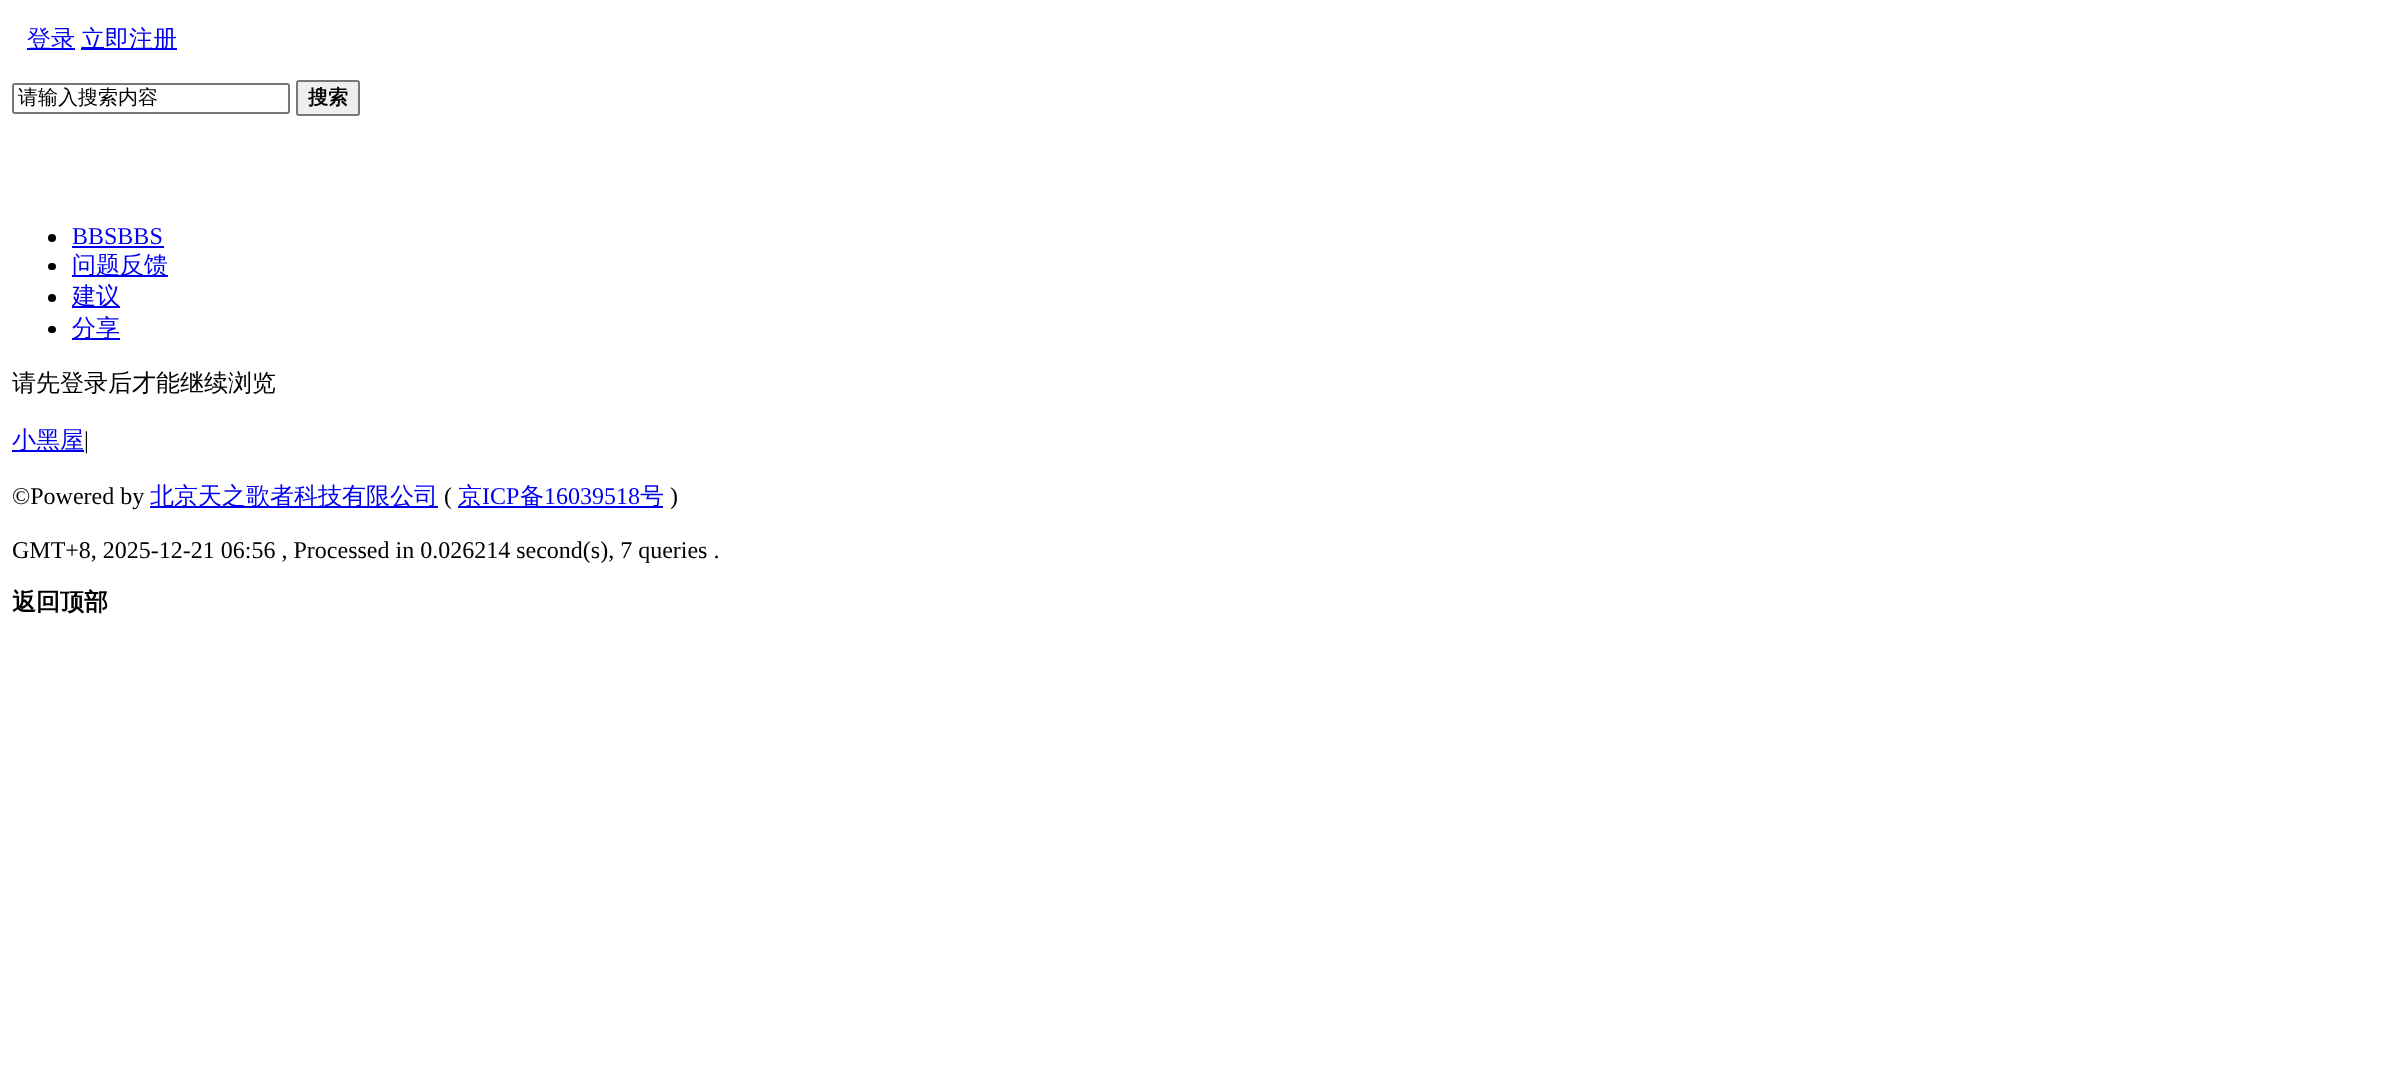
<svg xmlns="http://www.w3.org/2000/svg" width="2384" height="1079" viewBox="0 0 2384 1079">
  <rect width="100%" height="100%" fill="rgb(255,255,255)"/>
  <rect x="27" y="48" width="48" height="2" fill="rgb(0,0,238)"/>
  <text x="27" y="47" font-family="WenQuanYi Zen Hei" font-size="24" font-weight="500" fill="rgb(0,0,238)">登录</text>
  <rect x="81" y="48" width="96" height="2" fill="rgb(0,0,238)"/>
  <text x="81" y="47" font-family="WenQuanYi Zen Hei" font-size="24" font-weight="500" fill="rgb(0,0,238)">立即注册</text>
  <rect x="13" y="84" width="276" height="29" rx="2" fill="none" stroke="rgb(118,118,118)" stroke-width="2"/>
  <text x="18" y="104" font-family="WenQuanYi Zen Hei" font-size="20" font-weight="500" fill="rgb(0,0,0)">请输入搜索内容</text>
  <rect x="297" y="81" width="62" height="34" rx="2" fill="rgb(239,239,239)" stroke="rgb(118,118,118)" stroke-width="2"/>
  <text x="308" y="104" font-family="WenQuanYi Zen Hei" font-size="20" font-weight="bold" fill="rgb(0,0,0)">搜索</text>
  <circle cx="52" cy="238" r="4" fill="rgb(0,0,0)"/>
  <text x="72" y="244" font-family="Liberation Serif" font-size="24" fill="rgb(0,0,238)">BBSBBS</text>
  <rect x="72" y="246" width="92" height="2" fill="rgb(0,0,238)"/>
  <rect x="48" y="263" width="8" height="7" rx="3.5" fill="rgb(0,0,0)"/>
  <rect x="72" y="275" width="96" height="2" fill="rgb(0,0,238)"/>
  <text x="72" y="273" font-family="WenQuanYi Zen Hei" font-size="24" font-weight="500" fill="rgb(0,0,238)">问题反馈</text>
  <circle cx="52" cy="298" r="4" fill="rgb(0,0,0)"/>
  <rect x="72" y="306" width="48" height="2" fill="rgb(0,0,238)"/>
  <text x="72" y="304" font-family="WenQuanYi Zen Hei" font-size="24" font-weight="500" fill="rgb(0,0,238)">建议</text>
  <rect x="48" y="326" width="8" height="7" rx="3.5" fill="rgb(0,0,0)"/>
  <rect x="72" y="338" width="48" height="2" fill="rgb(0,0,238)"/>
  <text x="72" y="336" font-family="WenQuanYi Zen Hei" font-size="24" font-weight="500" fill="rgb(0,0,238)">分享</text>
  <text x="12" y="391" font-family="WenQuanYi Zen Hei" font-size="24" font-weight="500" fill="rgb(0,0,0)">请先登录后才能继续浏览</text>
  <rect x="12" y="450" width="72" height="2" fill="rgb(0,0,238)"/>
  <text x="12" y="448" font-family="WenQuanYi Zen Hei" font-size="24" font-weight="500" fill="rgb(0,0,238)">小黑屋</text>
  <g font-family="Liberation Serif" font-size="24" fill="rgb(0,0,0)">
    <text x="84" y="448">|</text>
    <text x="12" y="504">©Powered by</text>
  </g>
  <rect x="150" y="506" width="288" height="2" fill="rgb(0,0,238)"/>
  <text x="150" y="504" font-family="WenQuanYi Zen Hei" font-size="24" font-weight="500" fill="rgb(0,0,238)">北京天之歌者科技有限公司</text>
  <text x="444" y="504" font-family="Liberation Serif" font-size="24" fill="rgb(0,0,0)">(</text>
  <rect x="458" y="506" width="205" height="2" fill="rgb(0,0,238)"/>
  <text x="458" y="504" font-family="WenQuanYi Zen Hei" font-size="24" font-weight="500" fill="rgb(0,0,238)">京</text>
  <text x="482" y="504" font-family="Liberation Serif" font-size="24" fill="rgb(0,0,238)">ICP</text>
  <text x="520" y="504" font-family="WenQuanYi Zen Hei" font-size="24" font-weight="500" fill="rgb(0,0,238)">备</text>
  <text x="544" y="504" font-family="Liberation Serif" font-size="24" fill="rgb(0,0,238)">16039518</text>
  <text x="640" y="504" font-family="WenQuanYi Zen Hei" font-size="24" font-weight="500" fill="rgb(0,0,238)">号</text>
  <g font-family="Liberation Serif" font-size="24" fill="rgb(0,0,0)">
    <text x="670" y="504">)</text>
    <text x="12" y="558">GMT+8, 2025-12-21 06:56 , Processed in 0.026214 second(s), 7 queries .</text>
  </g>
  <text x="12" y="610" font-family="WenQuanYi Zen Hei" font-size="24" font-weight="bold" fill="rgb(0,0,0)">返回顶部</text>
</svg>
